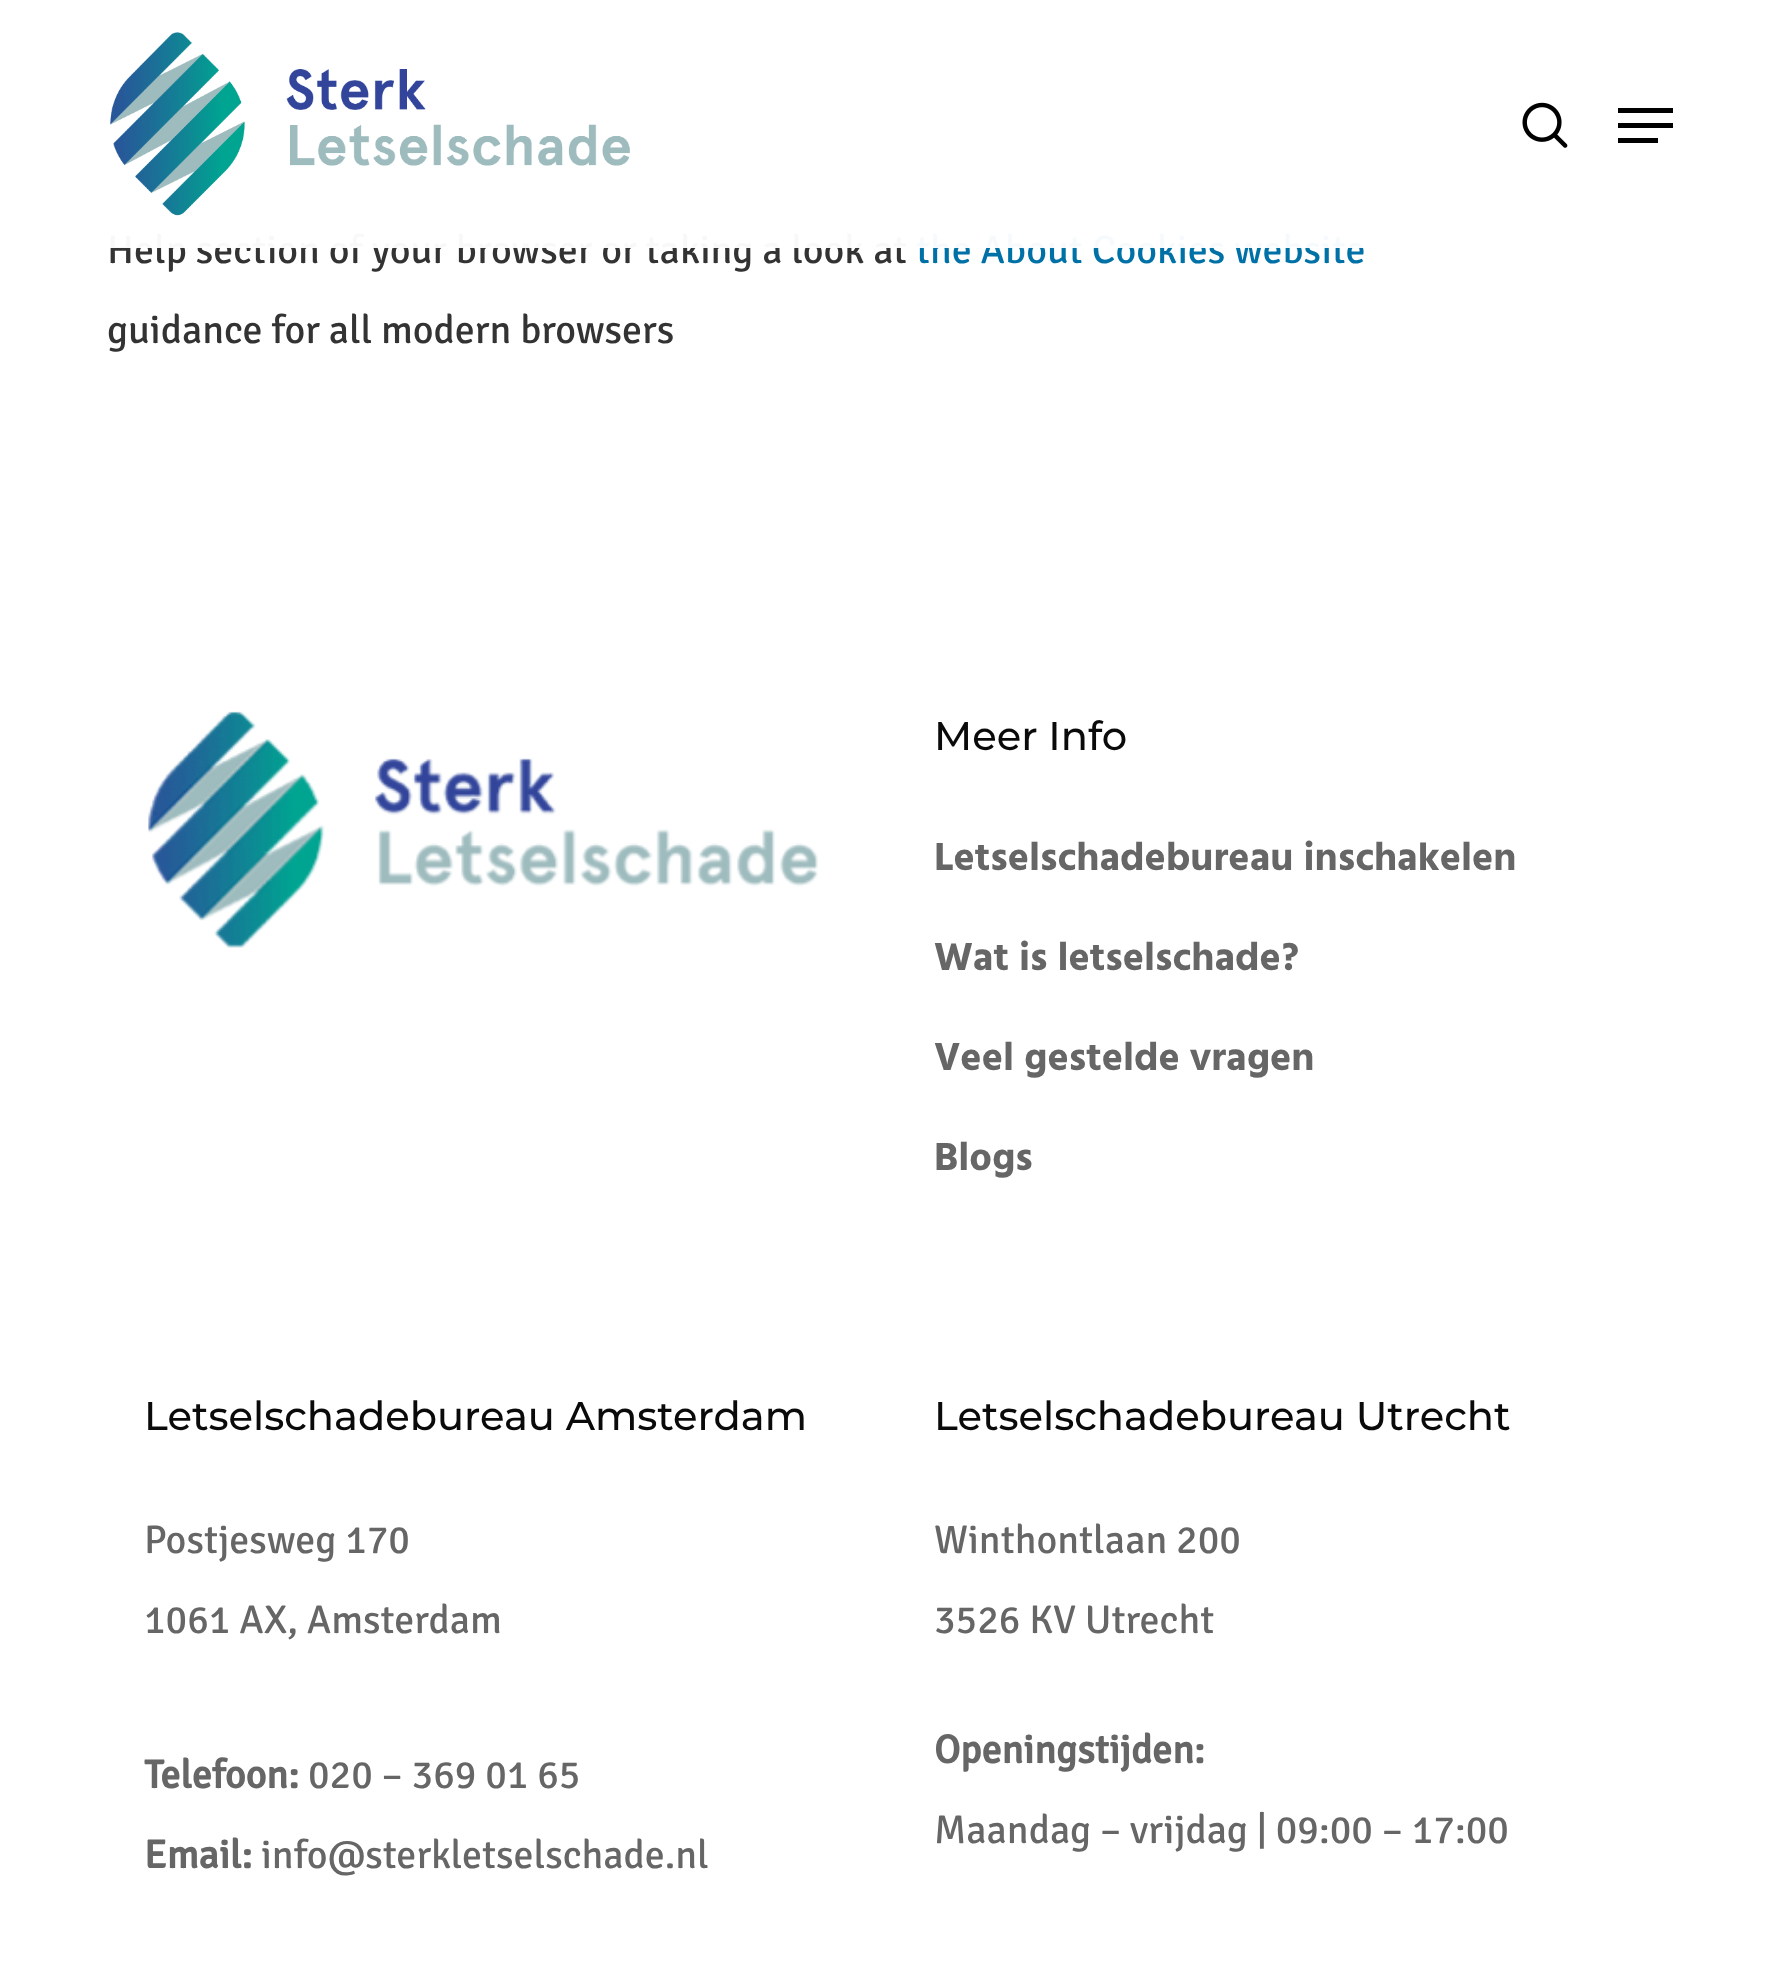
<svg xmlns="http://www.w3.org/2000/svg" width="1780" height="1987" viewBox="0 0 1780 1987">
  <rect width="100%" height="100%" fill="rgb(255,255,255)"/>
  <text x="107" y="263" font-family="Signika" font-size="40" font-weight="300" fill="rgb(51,51,51)">Help section of your browser or taking a look at</text>
  <text x="916" y="263" font-family="Signika" font-size="40" font-weight="300" fill="rgb(0,113,166)">the About Cookies website</text>
  <rect x="110" y="233" width="1253" height="15" fill="rgba(255,255,255,0.97)"/>
  <image x="110" y="32" width="520" height="184" href="pic1.png"/>
  <image x="1522" y="102" width="46" height="46" href="pic2.png"/>
  <rect x="1618" y="108" width="55" height="5" fill="rgb(0,0,0)"/>
  <rect x="1618" y="138" width="40" height="5" fill="rgb(0,0,0)"/>
  <rect x="1618" y="123" width="55" height="5" fill="rgb(0,0,0)"/>
  <text x="107" y="343" font-family="Signika" font-size="40" font-weight="300" fill="rgb(51,51,51)">guidance for all modern browsers</text>
  <image x="148" y="711" width="670" height="237" href="pic3.png"/>
  <text x="934" y="750" font-family="Montserrat" font-size="40" font-weight="100" fill="rgb(10,10,10)">Meer Info</text>
  <g font-family="Hind" font-size="40" font-weight="bold" fill="rgb(102,102,102)">
    <text x="934" y="870">Letselschadebureau inschakelen</text>
    <text x="934" y="970">Wat is letselschade?</text>
    <text x="934" y="1070">Veel gestelde vragen</text>
    <text x="934" y="1170">Blogs</text>
  </g>
  <text x="144" y="1430" font-family="Montserrat" font-size="40" font-weight="100" fill="rgb(10,10,10)">Letselschadebureau Amsterdam</text>
  <g font-family="Signika" font-size="40" font-weight="300" fill="rgb(102,102,102)">
    <text x="144" y="1553">Postjesweg 170</text>
    <text x="144" y="1633">1061 AX, Amsterdam</text>
  </g>
  <text x="144" y="1788" font-family="Signika" font-size="40" font-weight="bold" fill="rgb(102,102,102)">Telefoon:</text>
  <text x="308" y="1788" font-family="Signika" font-size="40" font-weight="300" fill="rgb(102,102,102)">020 – 369 01 65</text>
  <text x="144" y="1868" font-family="Signika" font-size="40" font-weight="bold" fill="rgb(102,102,102)">Email:</text>
  <text x="261" y="1868" font-family="Signika" font-size="40" font-weight="300" fill="rgb(102,102,102)">info@sterkletselschade.nl</text>
  <text x="934" y="1430" font-family="Montserrat" font-size="40" font-weight="100" fill="rgb(10,10,10)">Letselschadebureau Utrecht</text>
  <g font-family="Signika" font-size="40" font-weight="300" fill="rgb(102,102,102)">
    <text x="934" y="1553">Winthontlaan 200</text>
    <text x="934" y="1633">3526 KV Utrecht</text>
  </g>
  <text x="934" y="1763" font-family="Signika" font-size="40" font-weight="bold" fill="rgb(102,102,102)">Openingstijden:</text>
  <text x="934" y="1843" font-family="Signika" font-size="40" font-weight="300" fill="rgb(102,102,102)">Maandag – vrijdag | 09:00 – 17:00</text>
</svg>
